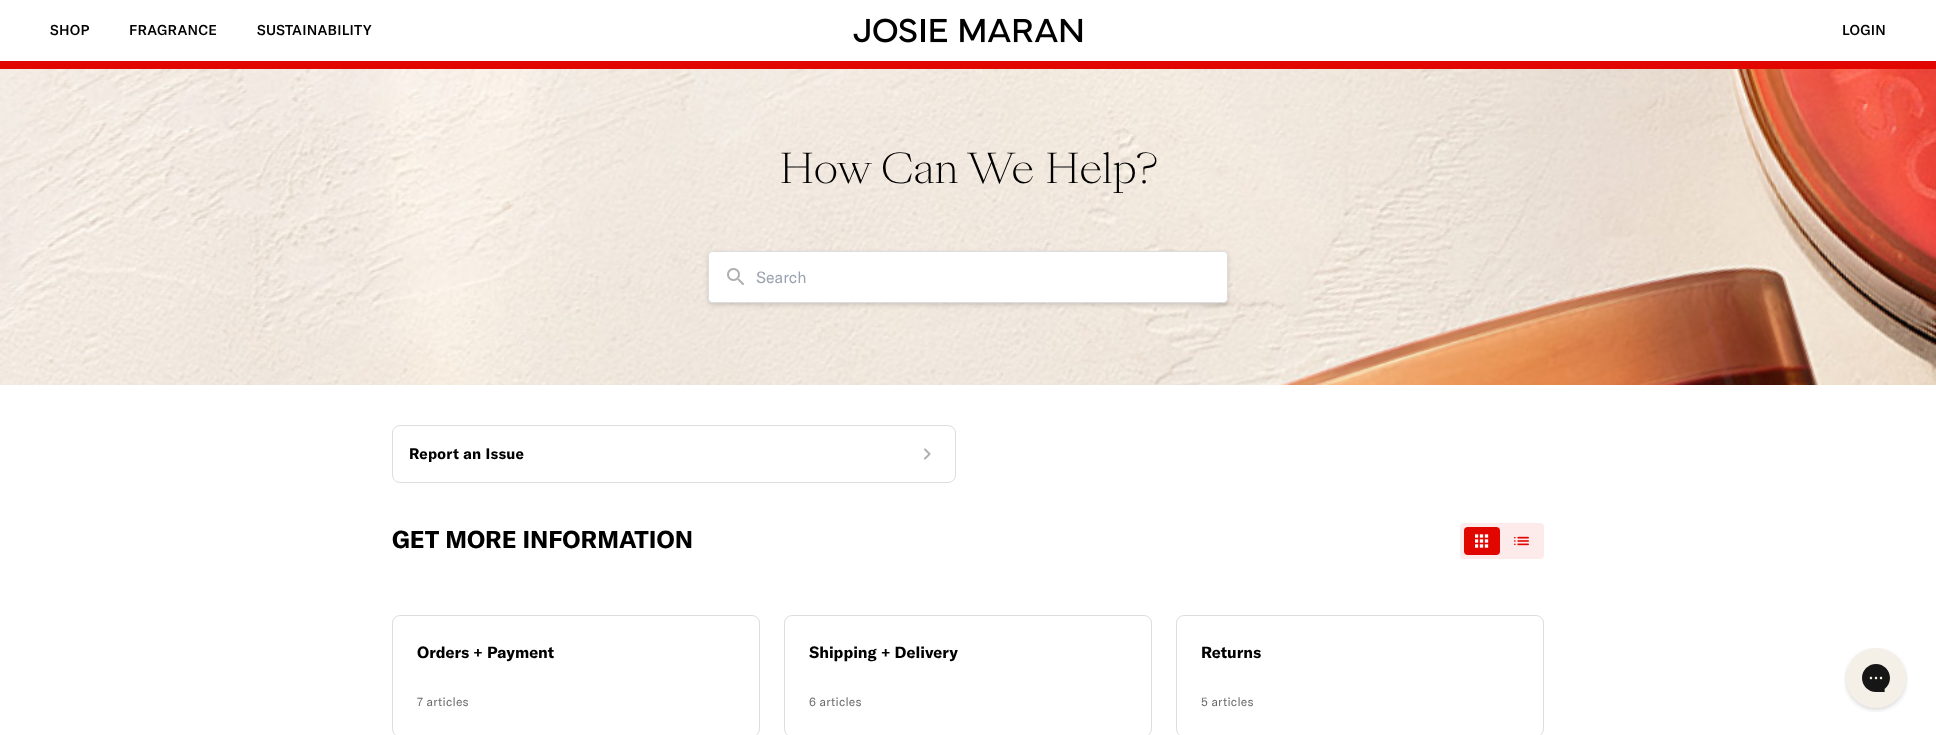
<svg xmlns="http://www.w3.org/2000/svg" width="1936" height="735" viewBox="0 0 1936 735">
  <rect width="100%" height="100%" fill="rgb(255,255,255)"/>
  <g font-family="GT America" font-size="14" font-weight="500" letter-spacing="0.25" fill="rgb(0,0,0)">
    <text x="50" y="35">SHOP</text>
    <text x="129" y="35">FRAGRANCE</text>
    <text x="257" y="35">SUSTAINABILITY</text>
  </g>
  <image x="853" y="18" width="230" height="25" href="pic1.png"/>
  <text x="1842" y="35" font-family="GT America" font-size="14" font-weight="500" letter-spacing="0.25" fill="rgb(0,0,0)">LOGIN</text>
  <rect x="0" y="61" width="1936" height="8" fill="rgb(225,6,0)"/>
  <image x="0" y="69" width="1936" height="316" href="pic2.png"/>
  <text x="779" y="183" font-family="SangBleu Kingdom" font-size="40" font-weight="300" letter-spacing="-0.4" fill="rgb(0,0,0)">How Can We Help?</text>
  <rect x="708" y="253" width="520" height="52" rx="4" fill="rgba(22,22,22,0.16)" filter="blur(2px)"/>
  <rect x="708.5" y="251.5" width="519" height="51" rx="3.5" fill="rgb(255,255,255)" stroke="rgb(221,221,221)"/>
  <image x="727" y="268" width="17" height="17" href="pic3.png"/>
  <text x="756" y="283" font-family="GT America" font-size="16" fill="rgb(156,163,175)">Search</text>
  <rect x="392.5" y="425.5" width="563" height="57" rx="7.5" fill="none" stroke="rgb(221,221,221)"/>
  <text x="409" y="459" font-family="GT America" font-size="15" font-weight="bold" letter-spacing="0.25" fill="rgb(0,0,0)">Report an Issue</text>
  <image x="924" y="448" width="7" height="12" href="pic4.png"/>
  <text x="392" y="548" font-family="GT America" font-size="24" font-weight="bold" fill="rgb(0,0,0)">GET MORE INFORMATION</text>
  <rect x="1460" y="523" width="84" height="36" rx="4" fill="rgb(253,235,235)"/>
  <rect x="1464" y="527" width="36" height="28" rx="4" fill="rgb(225,6,0)"/>
  <image x="1475" y="534" width="54" height="14" href="pic5.png"/>
  <rect x="392.5" y="615.5" width="367" height="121" rx="7.5" fill="none" stroke="rgb(221,221,221)"/>
  <text x="417" y="658" font-family="GT America" font-size="16" font-weight="bold" fill="rgb(0,0,0)">Orders + Payment</text>
  <text x="417" y="706" font-family="GT America" font-size="12" letter-spacing="0.25" fill="rgb(106,106,106)">7 articles</text>
  <rect x="784.5" y="615.5" width="367" height="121" rx="7.5" fill="none" stroke="rgb(221,221,221)"/>
  <text x="809" y="658" font-family="GT America" font-size="16" font-weight="bold" fill="rgb(0,0,0)">Shipping + Delivery</text>
  <text x="809" y="706" font-family="GT America" font-size="12" letter-spacing="0.25" fill="rgb(106,106,106)">6 articles</text>
  <rect x="1176.5" y="615.5" width="367" height="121" rx="7.5" fill="none" stroke="rgb(221,221,221)"/>
  <text x="1201" y="658" font-family="GT America" font-size="16" font-weight="bold" fill="rgb(0,0,0)">Returns</text>
  <text x="1201" y="706" font-family="GT America" font-size="12" letter-spacing="0.25" fill="rgb(106,106,106)">5 articles</text>
  <image x="1844" y="648" width="64" height="64" href="pic6.png"/>
</svg>
